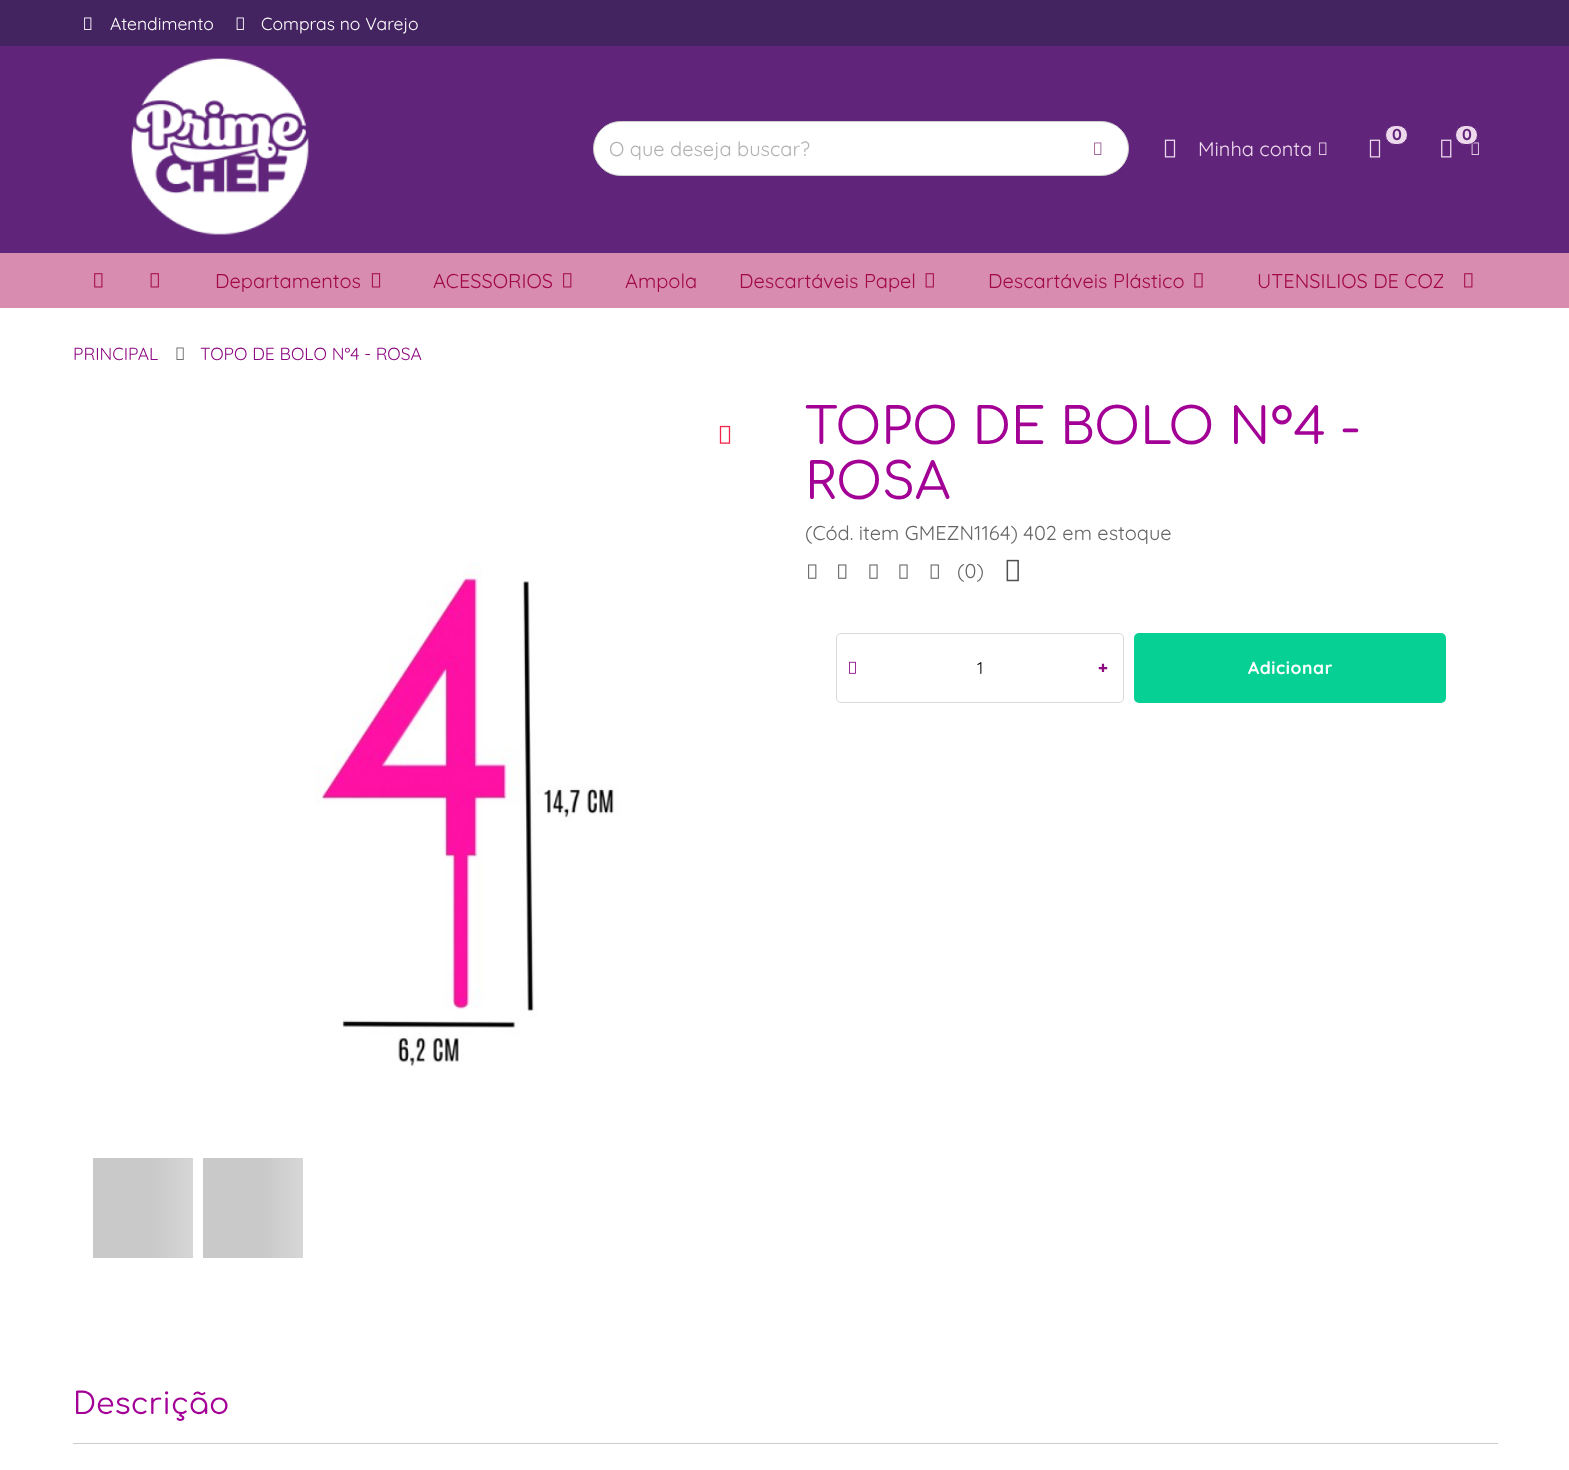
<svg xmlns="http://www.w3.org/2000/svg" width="1569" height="1470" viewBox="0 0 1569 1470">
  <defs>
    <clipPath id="clip1"><rect x="128" y="253" width="1315" height="55"/></clipPath>
    <linearGradient id="g1" gradientUnits="userSpaceOnUse" x1="93" y1="1158" x2="352" y2="1158"><stop offset="0.23" stop-color="rgb(201,201,201)"/><stop offset="0.62" stop-color="rgb(236,235,235)"/><stop offset="1" stop-color="rgb(201,201,201)"/></linearGradient>
    <linearGradient id="g2" gradientUnits="userSpaceOnUse" x1="203" y1="1158" x2="462" y2="1158"><stop offset="0.23" stop-color="rgb(201,201,201)"/><stop offset="0.62" stop-color="rgb(236,235,235)"/><stop offset="1" stop-color="rgb(201,201,201)"/></linearGradient>
  </defs>
  <rect width="100%" height="100%" fill="rgb(255,255,255)"/>
  <rect x="0" y="0" width="1569" height="46" fill="rgb(68,36,96)"/>
  <image x="84" y="17" width="8" height="13" href="pic1.png"/>
  <text x="110" y="30" font-family="Quicksand" font-size="17.5" fill="rgb(255,255,255)">Atendimento</text>
  <image x="236" y="17" width="8" height="13" href="pic2.png"/>
  <text x="261" y="30" font-family="Quicksand" font-size="17.5" fill="rgb(255,255,255)">Compras no Varejo</text>
  <rect x="0" y="46" width="1569" height="207" fill="rgb(96,37,123)"/>
  <image x="131" y="58" width="178" height="177" href="pic3.png"/>
  <rect x="593.5" y="121.5" width="535" height="54" rx="27" fill="rgb(255,255,255)" stroke="rgb(204,204,204)"/>
  <text x="609" y="156" font-family="Quicksand" font-size="20" fill="rgb(178,178,178)">O que deseja buscar?</text>
  <image x="1094" y="142" width="8" height="13" href="pic4.png"/>
  <rect x="1385.5" y="125.5" width="22" height="19" rx="9.5" fill="rgb(238,216,236)" stroke="rgb(96,37,123)"/>
  <text x="1392" y="140" font-family="Quicksand" font-size="16" font-weight="bold" fill="rgb(96,37,123)">0</text>
  <image x="1369" y="139" width="12" height="19" href="pic5.png"/>
  <image x="1471" y="142" width="8" height="13" href="pic7.png"/>
  <rect x="1455.5" y="125.5" width="22" height="19" rx="9.5" fill="rgb(238,216,236)" stroke="rgb(96,37,123)"/>
  <text x="1462" y="140" font-family="Quicksand" font-size="16" font-weight="bold" fill="rgb(96,37,123)">0</text>
  <image x="1441" y="139" width="11" height="19" href="pic6.png"/>
  <image x="1164" y="139" width="12" height="19" href="pic5.png"/>
  <text x="1198" y="156" font-family="Quicksand" font-size="20" fill="rgb(238,216,236)">Minha conta</text>
  <image x="1319" y="142" width="8" height="13" href="pic8.png"/>
  <rect x="0" y="253" width="1569" height="55" fill="rgb(216,140,175)"/>
  <image x="94" y="273" width="9" height="15" href="pic9.png"/>
  <image x="150" y="273" width="9" height="15" href="pic10.png"/>
  <text x="215" y="288" font-family="Quicksand" font-size="20" fill="rgb(161,8,74)">Departamentos</text>
  <image x="371" y="273" width="10" height="15" href="pic11.png"/>
  <text x="433" y="288" font-family="Quicksand" font-size="20" fill="rgb(161,8,74)">ACESSORIOS</text>
  <image x="563" y="273" width="9" height="15" href="pic12.png"/>
  <g font-family="Quicksand" font-size="20" fill="rgb(161,8,74)">
    <text x="625" y="288">Ampola</text>
    <text x="739" y="288">Descartáveis Papel</text>
  </g>
  <image x="925" y="273" width="9" height="15" href="pic10.png"/>
  <text x="988" y="288" font-family="Quicksand" font-size="20" fill="rgb(161,8,74)">Descartáveis Plástico</text>
  <image x="1194" y="273" width="9" height="15" href="pic13.png"/>
  <g clip-path="url(#clip1)">
    <text x="1257" y="288" font-family="Quicksand" font-size="20" fill="rgb(161,8,74)">UTENSILIOS DE COZ</text>
  </g>
  <image x="1464" y="273" width="9" height="15" href="pic9.png"/>
  <text x="73" y="360" font-family="Quicksand" font-size="17.5" fill="rgb(140,8,129)">PRINCIPAL</text>
  <image x="176" y="347" width="8" height="13" href="pic14.png"/>
  <text x="200" y="360" font-family="Quicksand" font-size="17.5" fill="rgb(140,8,129)">TOPO DE BOLO N°4 - ROSA</text>
  <image x="719" y="425" width="12" height="19" href="pic15.png"/>
  <image x="315" y="562" width="305" height="505" href="pic16.png"/>
  <rect x="93" y="1158" width="100" height="100" rx="0.5" fill="url(#g1)"/>
  <rect x="203" y="1158" width="100" height="100" rx="0.5" fill="url(#g2)"/>
  <g font-family="Comfortaa" font-size="50" fill="rgb(163,0,150)">
    <text>
      <tspan x="805" y="444">TOPO DE BOLO N°4 -</tspan>
      <tspan x="805" y="499">ROSA</tspan>
    </text>
  </g>
  <text x="805" y="540" font-family="Quicksand" font-size="20" fill="rgb(102,102,102)">(Cód. item GMEZN1164) 402 em estoque</text>
  <image x="808" y="564" width="9" height="15" href="pic17.png"/>
  <image x="838" y="564" width="9" height="15" href="pic17.png"/>
  <image x="869" y="564" width="9" height="15" href="pic18.png"/>
  <image x="899" y="564" width="9" height="15" href="pic18.png"/>
  <image x="930" y="564" width="9" height="15" href="pic19.png"/>
  <text x="957" y="578" font-family="Quicksand" font-size="20" fill="rgb(102,102,102)">(0)</text>
  <image x="1006" y="559" width="13" height="23" href="pic20.png"/>
  <rect x="836.5" y="633.5" width="287" height="69" rx="4.5" fill="none" stroke="rgb(217,217,217)"/>
  <image x="849" y="661" width="7" height="13" href="pic21.png"/>
  <text x="977" y="674" font-family="Quicksand" font-size="17" fill="rgb(0,0,0)">1</text>
  <text x="1098" y="674" font-family="Noto Sans" font-size="17" font-weight="900" fill="rgb(140,8,129)">+</text>
  <rect x="1134" y="633" width="312" height="70" rx="5" fill="rgb(6,208,147)"/>
  <text x="1248" y="674" font-family="Quicksand" font-size="17.5" font-weight="bold" letter-spacing="0.6" fill="rgb(255,255,255)">Adicionar</text>
  <rect x="73" y="1443" width="1425" height="1" fill="rgb(204,204,204)"/>
  <text x="73" y="1414" font-family="Comfortaa" font-size="30" fill="rgb(163,0,150)">Descrição</text>
</svg>
